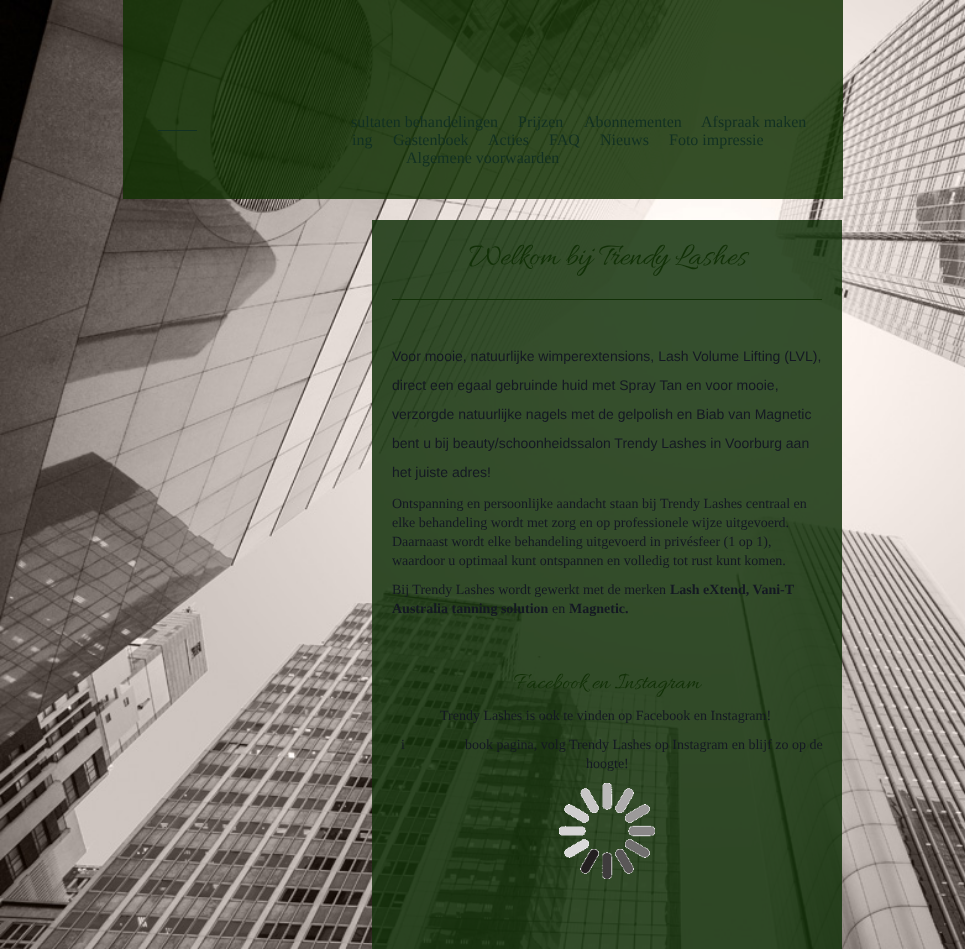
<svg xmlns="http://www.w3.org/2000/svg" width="965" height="949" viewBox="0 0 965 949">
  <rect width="100%" height="100%" fill="rgb(255,255,255)"/>
  <image x="0" y="0" width="965" height="949" href="pic1.png"/>
  <rect x="123" y="0" width="720" height="199" fill="rgba(18,48,3,0.85)"/>
  <rect x="158" y="130" width="39" height="1" fill="rgb(18,48,35)"/>
  <g font-family="Liberation Serif" font-size="16" fill="rgb(18,48,35)">
    <text x="351" y="127">sultaten behandelingen</text>
    <text x="518" y="127">Prijzen</text>
    <text x="584" y="127">Abonnementen</text>
    <text x="701" y="127">Afspraak maken</text>
    <text x="352" y="145">ing</text>
    <text x="393" y="145">Gastenboek</text>
    <text x="488" y="145">Acties</text>
    <text x="549" y="145">FAQ</text>
    <text x="600" y="145">Nieuws</text>
    <text x="669" y="145">Foto impressie</text>
    <text x="406" y="163">Algemene voorwaarden</text>
  </g>
  <rect x="372" y="220" width="470" height="729" fill="rgba(18,48,9,0.85)"/>
  <text x="469" y="264" font-family="Allura" font-size="32" fill="rgb(18,48,7)">Welkom bij Trendy Lashes</text>
  <rect x="392" y="299" width="430" height="1" fill="rgb(18,48,7)"/>
  <g font-family="Liberation Sans" font-size="14" fill="rgb(20,24,35)">
    <text x="392" y="361">Voor mooie, natuurlijke wimperextensions, Lash Volume Lifting (LVL),</text>
    <text x="392" y="390">direct een egaal gebruinde huid met Spray Tan en voor mooie,</text>
    <text x="392" y="419">verzorgde natuurlijke nagels met de gelpolish en Biab van Magnetic</text>
    <text x="392" y="448">bent u bij beauty/schoonheidssalon Trendy Lashes in Voorburg aan</text>
    <text x="392" y="477">het juiste adres!</text>
  </g>
  <g font-family="Liberation Serif" font-size="14" fill="rgb(20,24,35)">
    <text>
      <tspan x="392" y="508">Ontspanning en persoonlijke aandacht staan bij Trendy Lashes centraal en</tspan>
      <tspan x="392" y="527">elke behandeling wordt met zorg en op professionele wijze uitgevoerd.</tspan>
      <tspan x="392" y="546">Daarnaast wordt elke behandeling uitgevoerd in privésfeer (1 op 1),</tspan>
      <tspan x="392" y="565">waardoor u optimaal kunt ontspannen en volledig tot rust kunt komen.</tspan>
    </text>
    <text x="392" y="594">Bij Trendy Lashes wordt gewerkt met de merken</text>
  </g>
  <g font-family="Liberation Serif" font-size="14" font-weight="bold" fill="rgb(20,24,35)">
    <text x="670" y="594">Lash eXtend, Vani-T</text>
    <text x="392" y="613">Australia tanning solution</text>
  </g>
  <text x="552" y="613" font-family="Liberation Serif" font-size="14" fill="rgb(20,24,35)">en</text>
  <text x="569" y="613" font-family="Liberation Serif" font-size="14" font-weight="bold" fill="rgb(20,24,35)">Magnetic.</text>
  <text x="514" y="688" font-family="Allura" font-size="24" fill="rgb(18,48,7)">Facebook en Instagram</text>
  <g font-family="Liberation Serif" font-size="14" fill="rgb(20,24,35)">
    <text x="440" y="720">Trendy Lashes is ook te vinden op Facebook en Instagram!</text>
    <text x="401" y="749">i</text>
    <text x="465" y="749">book pagina, volg Trendy Lashes op Instagram en blijf zo op de</text>
    <text x="586" y="768">hoogte!</text>
  </g>
  <image x="559" y="783" width="96" height="96" href="pic2.png"/>
</svg>
